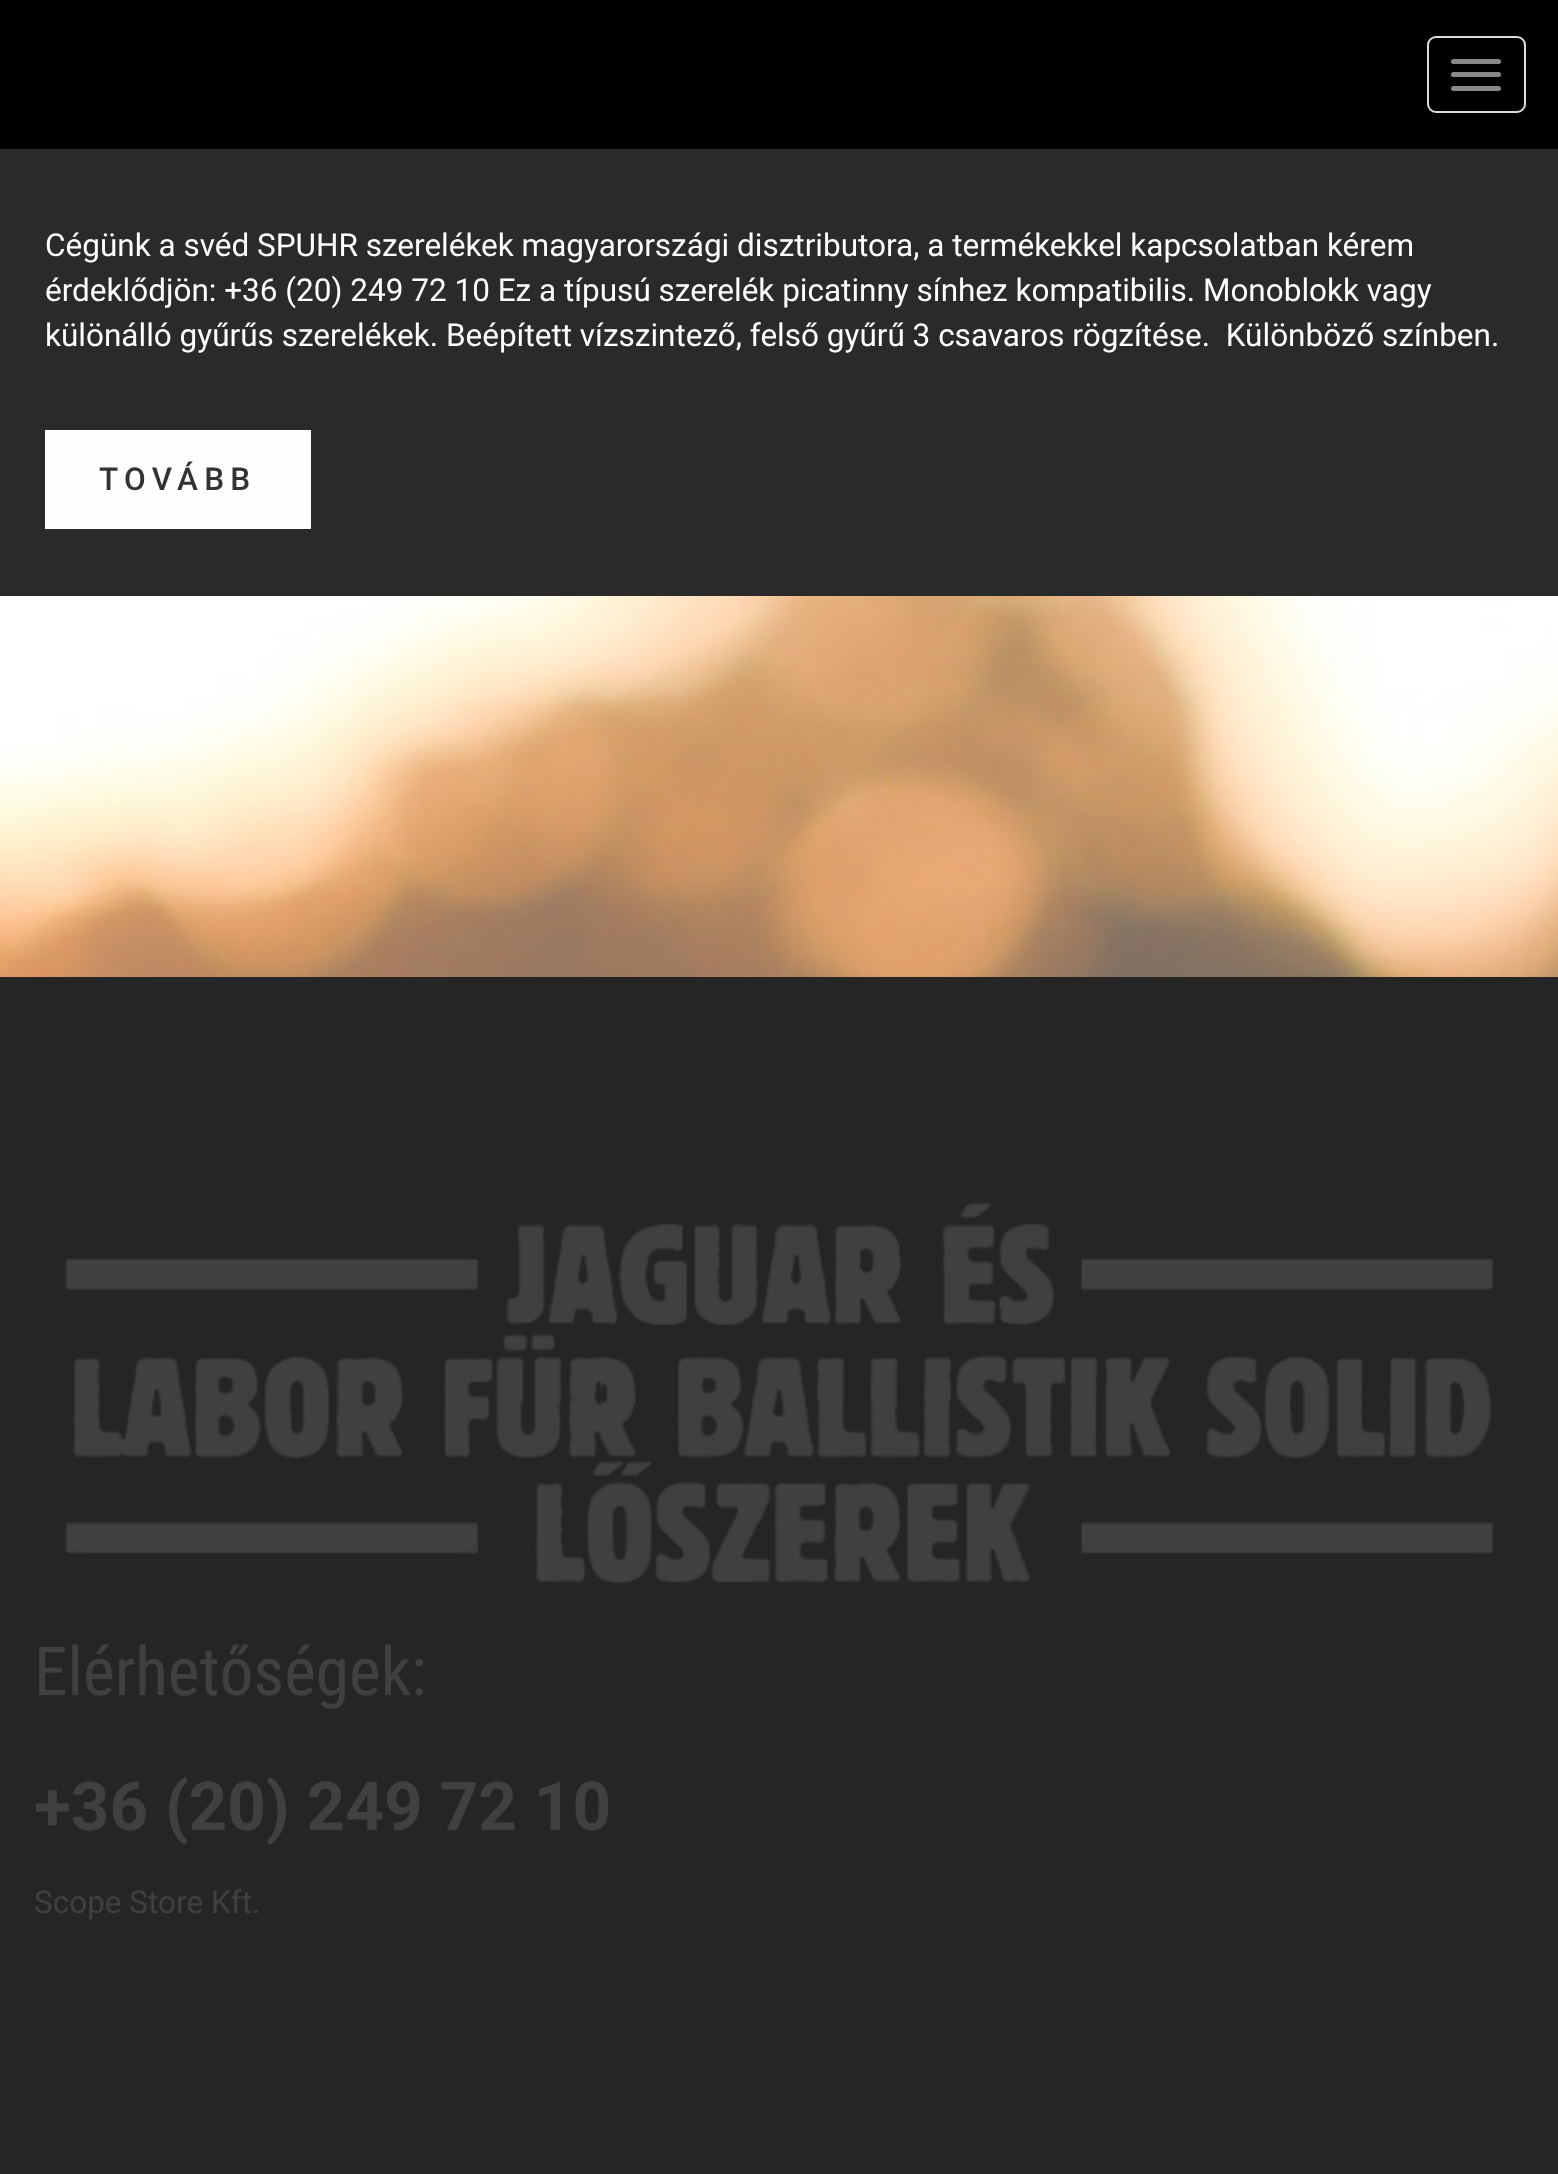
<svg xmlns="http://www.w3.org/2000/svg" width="1558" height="2174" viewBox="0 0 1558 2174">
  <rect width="100%" height="100%" fill="rgb(255,255,255)"/>
  <image x="0" y="596" width="1558" height="381" href="pic1.png"/>
  <rect x="0" y="0" width="1558" height="149" fill="rgb(0,0,0)"/>
  <rect x="1428" y="37" width="97" height="75" rx="8" fill="none" stroke="rgb(221,221,221)" stroke-width="2"/>
  <rect x="1451" y="59" width="50" height="5" rx="2.5" fill="rgb(136,136,136)"/>
  <rect x="1451" y="72" width="50" height="5" rx="2.5" fill="rgb(136,136,136)"/>
  <rect x="1451" y="86" width="50" height="5" rx="2.5" fill="rgb(136,136,136)"/>
  <rect x="0" y="149" width="1558" height="447" fill="rgb(42,42,42)"/>
  <g font-family="Roboto" font-size="31.5" fill="rgb(254,254,254)">
    <text xml:space="preserve"><tspan x="45" y="256">Cégünk a svéd SPUHR szerelékek magyarországi disztributora, a termékekkel kapcsolatban kérem</tspan><tspan x="45" y="301">érdeklődjön: +36 (20) 249 72 10 Ez a típusú szerelék picatinny sínhez kompatibilis. Monoblokk vagy</tspan><tspan x="45" y="346">különálló gyűrűs szerelékek. Beépített vízszintező, felső gyűrű 3 csavaros rögzítése.  Különböző színben.</tspan></text>
  </g>
  <rect x="45" y="430" width="266" height="99" fill="rgb(254,254,254)"/>
  <text x="99" y="490" font-family="Roboto" font-size="31.5" font-weight="500" letter-spacing="6.25" fill="rgb(51,51,51)">TOVÁBB</text>
  <rect x="0" y="977" width="1558" height="1197" fill="rgb(37,37,37)"/>
  <image x="65" y="1202" width="1429" height="382" href="pic2.png"/>
  <text x="34" y="1695" font-family="Roboto Condensed" font-size="67.5" fill="rgb(64,64,64)">Elérhetőségek:</text>
  <text x="34" y="1830" font-family="Roboto" font-size="67.5" font-weight="bold" fill="rgb(64,64,64)">+36 (20) 249 72 10</text>
  <text x="34" y="1913" font-family="Roboto" font-size="31.5" fill="rgb(64,64,64)">Scope Store Kft.</text>
</svg>
